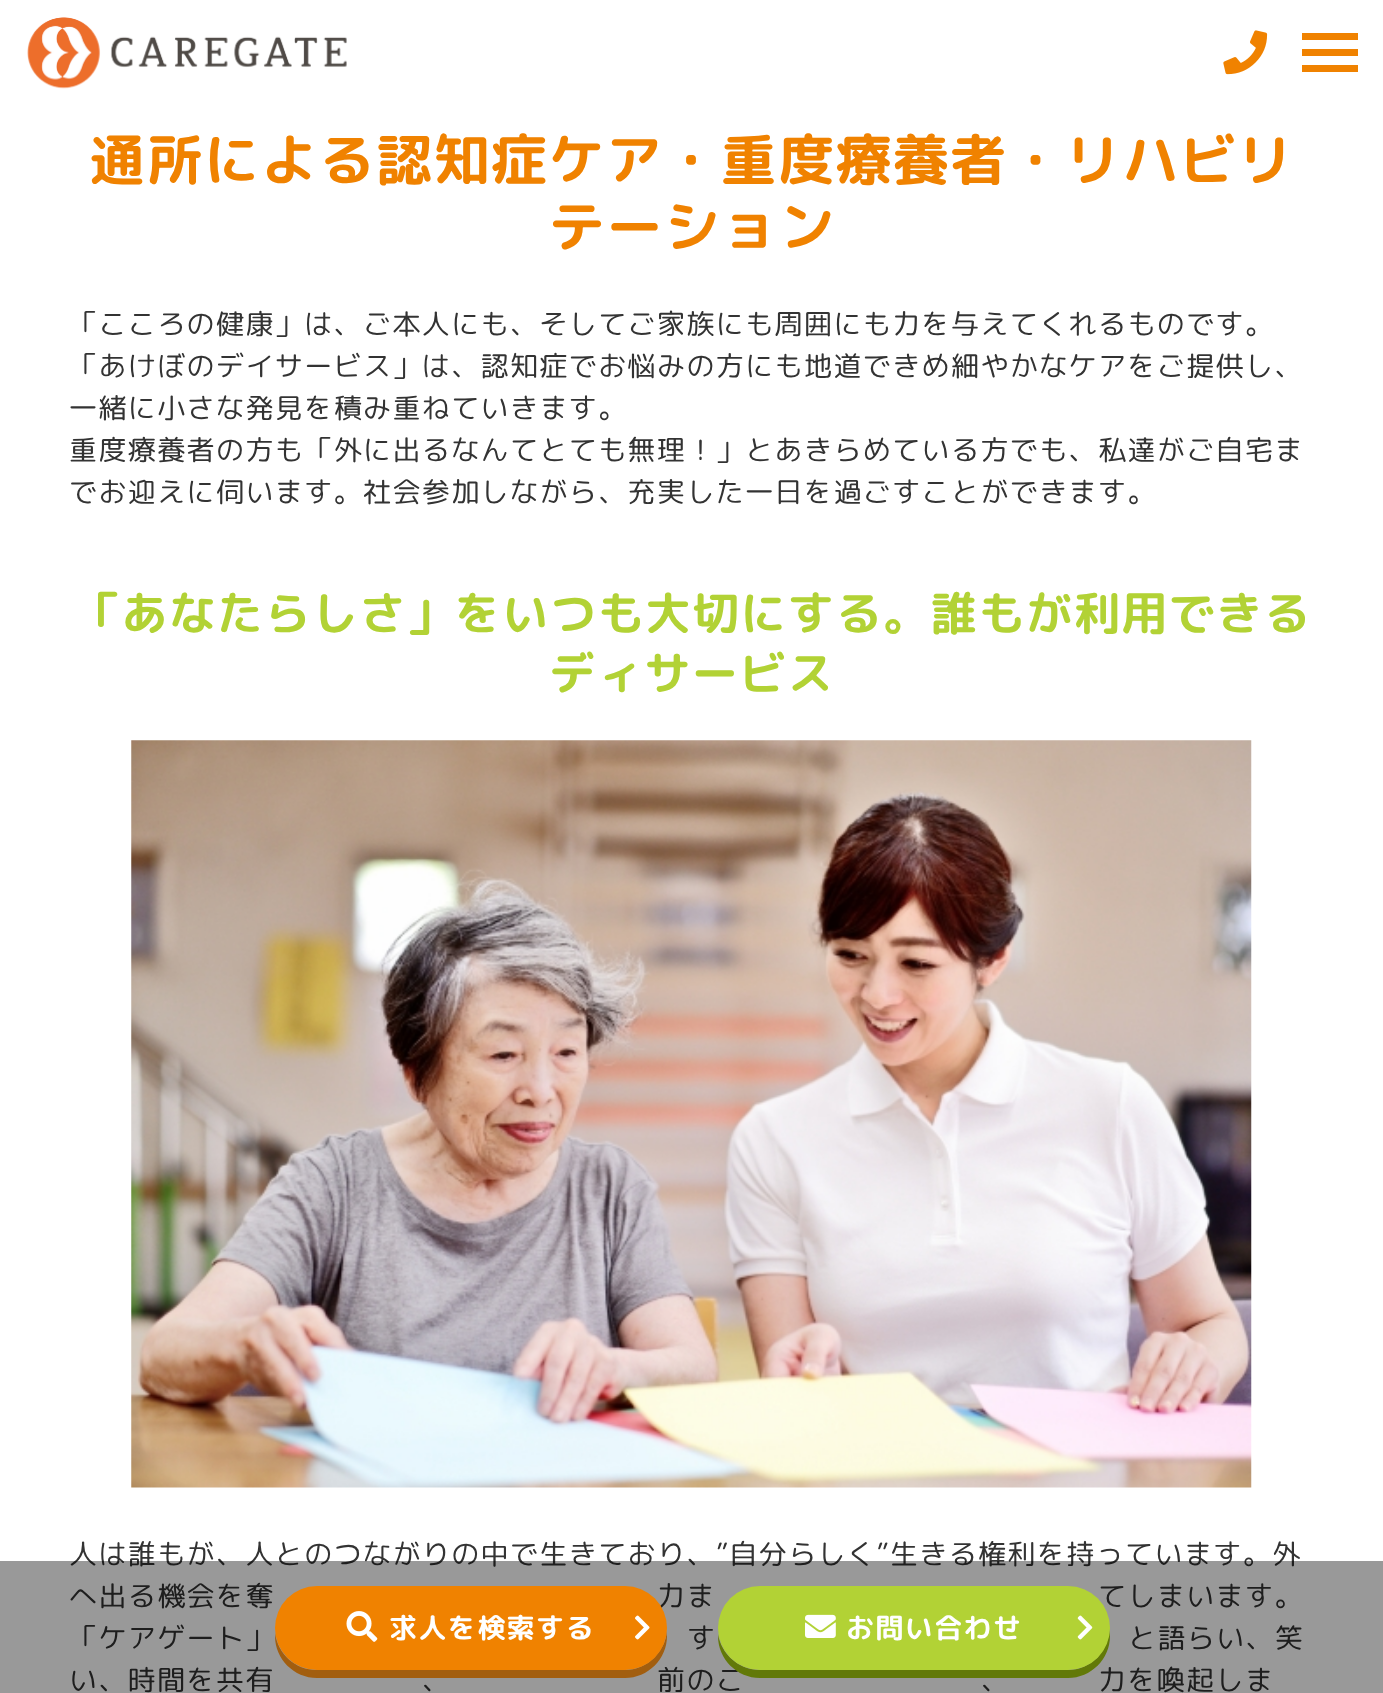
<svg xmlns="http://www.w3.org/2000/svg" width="1383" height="1693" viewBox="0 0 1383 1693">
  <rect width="100%" height="100%" fill="rgb(255,255,255)"/>
  <image x="27" y="17" width="320" height="72" href="pic1.png"/>
  <image x="1223" y="30" width="45" height="45" href="pic2.png"/>
  <rect x="1302" y="33" width="56" height="7" fill="rgb(240,130,0)"/>
  <rect x="1302" y="49" width="56" height="7" fill="rgb(240,130,0)"/>
  <rect x="1302" y="65" width="56" height="7" fill="rgb(240,130,0)"/>
  <g font-family="'Rounded Mplus 1c Bold'" font-size="56" font-weight="bold" letter-spacing="1.4" fill="rgb(240,130,0)">
    <text x="89" y="180">通所による認知症ケア・重度療養者・リハビリ</text>
    <text x="549" y="247">テーション</text>
  </g>
  <g font-family="'Rounded Mplus 1c'" font-size="28" letter-spacing="1.4" fill="rgb(51,51,51)">
    <text>
      <tspan x="69" y="334">「こころの健康」は、ご本人にも、そしてご家族にも周囲にも力を与えてくれるものです。</tspan>
      <tspan x="69" y="376">「あけぼのデイサービス」は、認知症でお悩みの方にも地道できめ細やかなケアをご提供し、</tspan>
      <tspan x="69" y="418">一緒に小さな発見を積み重ねていきます。</tspan>
      <tspan x="69" y="460">重度療養者の方も「外に出るなんてとても無理！」とあきらめている方でも、私達がご自宅ま</tspan>
      <tspan x="69" y="502">でお迎えに伺います。社会参加しながら、充実した一日を過ごすことができます。</tspan>
    </text>
  </g>
  <g font-family="'Rounded Mplus 1c Bold'" font-size="46.2" font-weight="bold" letter-spacing="1.4" fill="rgb(178,210,53)">
    <text x="74" y="630">「あなたらしさ」をいつも大切にする。誰もが利用できる</text>
    <text x="549" y="690">ディサービス</text>
  </g>
  <image x="131" y="740" width="1121" height="748" href="pic3.png"/>
  <g font-family="'Rounded Mplus 1c'" font-size="28" letter-spacing="1.4" fill="rgb(51,51,51)">
    <text>
      <tspan x="69" y="1564">人は誰もが、人とのつながりの中で生きており、”自分らしく”生きる権利を持っています。外</tspan>
      <tspan x="69" y="1606">へ出る機会を奪</tspan>
    </text>
    <text x="657" y="1606">力ま</text>
    <text x="1098" y="1606">てしまいます。</text>
    <text x="69" y="1648">「ケアゲート」</text>
    <text x="687" y="1648">す</text>
    <text x="1128" y="1648">と語らい、笑</text>
    <text x="69" y="1690">い、時間を共有</text>
    <text x="422" y="1690">、</text>
    <text x="657" y="1690">前のこ</text>
    <text x="981" y="1690">、</text>
    <text x="1098" y="1690">力を喚起しま</text>
  </g>
  <rect x="0" y="1561" width="1383" height="132" fill="rgba(0,0,0,0.4)"/>
  <path d="M275 1633V1636C275 1659 294 1678 317 1678H625C648 1678 667 1659 667 1636V1631C665 1652 647 1670 625 1670H317C295 1670 278 1654 275 1633Z" fill="rgb(162,94,15)"/>
  <rect x="275" y="1586" width="392" height="84" rx="42" fill="rgb(240,130,0)"/>
  <image x="346" y="1611" width="32" height="31" href="pic4.png"/>
  <text x="389" y="1638" font-family="'Rounded Mplus 1c Bold'" font-size="28" font-weight="bold" letter-spacing="1.4" fill="rgb(255,255,255)">求人を検索する</text>
  <image x="635" y="1615" width="15" height="25" href="pic5.png"/>
  <path d="M718 1634V1636C718 1659 737 1678 760 1678H1068C1091 1678 1110 1659 1110 1636L1109 1629C1109 1652 1090 1670 1068 1670H760C739 1670 721 1654 718 1634Z" fill="rgb(98,121,8)"/>
  <rect x="718" y="1586" width="392" height="84" rx="42" fill="rgb(178,210,53)"/>
  <image x="805" y="1614" width="31" height="24" href="pic6.png"/>
  <text x="846" y="1638" font-family="'Rounded Mplus 1c Bold'" font-size="28" font-weight="bold" letter-spacing="1.4" fill="rgb(255,255,255)">お問い合わせ</text>
  <image x="1077" y="1615" width="16" height="25" href="pic7.png"/>
</svg>
